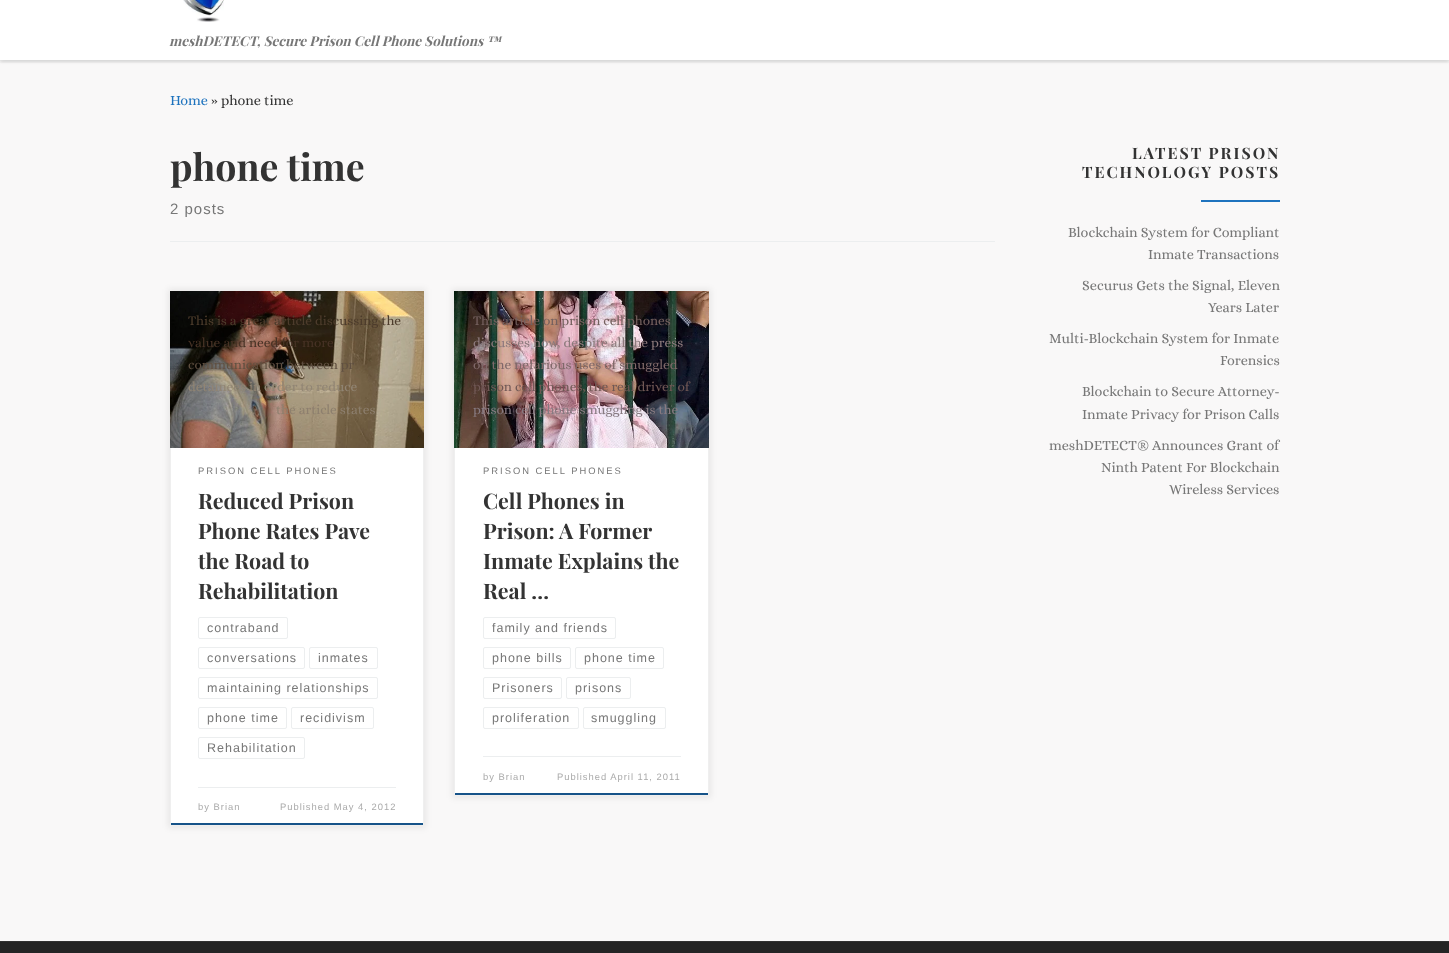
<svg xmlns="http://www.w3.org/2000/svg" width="1449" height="953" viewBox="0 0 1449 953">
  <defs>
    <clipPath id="clip1"><rect x="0" y="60" width="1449" height="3"/></clipPath>
  </defs>
  <rect width="100%" height="100%" fill="rgb(249,248,248)"/>
  <rect x="0" y="-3" width="1449" height="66" fill="rgba(102,102,102,0.08)" filter="blur(1px)"/>
  <rect x="0" y="0" width="1449" height="60" fill="rgb(255,255,255)"/>
  <rect x="0" y="60" width="1449" height="1" fill="rgb(239,239,239)"/>
  <g clip-path="url(#clip1)">
    <rect x="0" y="-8" width="1449" height="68" fill="rgba(0,0,0,0.2)" filter="blur(2.5px)"/>
  </g>
  <image x="183" y="0" width="41" height="22" href="pic1.png"/>
  <text x="169" y="46" font-family="Playfair Display" font-size="13.5" font-weight="bold" font-style="italic" fill="rgb(119,119,119)">meshDETECT, Secure Prison Cell Phone Solutions ™</text>
  <text x="170" y="105" font-family="Alice" font-size="14.25" fill="rgb(30,115,190)">Home</text>
  <text x="211" y="105" font-family="Alice" font-size="14.25" fill="rgb(51,51,51)">» phone time</text>
  <text x="170" y="181" font-family="Playfair Display" font-size="37.5" font-weight="bold" fill="rgb(51,51,51)">phone time</text>
  <text x="170" y="214" font-family="Liberation Sans" font-size="15" letter-spacing="1" fill="rgb(119,119,119)">2 posts</text>
  <rect x="170" y="241" width="825" height="1" fill="rgb(236,238,239)"/>
  <rect x="168" y="289" width="258" height="539" fill="rgba(0,0,0,0.07)" filter="blur(3px)"/>
  <rect x="171" y="448" width="252" height="375" fill="rgb(255,255,255)"/>
  <rect x="170" y="823" width="254" height="2" fill="rgb(22,83,137)"/>
  <rect x="198.5" y="617.5" width="89" height="21" rx="1.5" fill="none" stroke="rgb(236,238,239)"/>
  <rect x="198.5" y="647.5" width="106" height="21" rx="1.5" fill="none" stroke="rgb(236,238,239)"/>
  <rect x="309.5" y="647.5" width="68" height="21" rx="1.5" fill="none" stroke="rgb(236,238,239)"/>
  <rect x="198.5" y="677.5" width="179" height="21" rx="1.5" fill="none" stroke="rgb(236,238,239)"/>
  <rect x="198.5" y="707.5" width="88" height="21" rx="1.5" fill="none" stroke="rgb(236,238,239)"/>
  <rect x="291.5" y="707.5" width="82" height="21" rx="1.5" fill="none" stroke="rgb(236,238,239)"/>
  <rect x="198.5" y="737.5" width="106" height="21" rx="1.5" fill="none" stroke="rgb(236,238,239)"/>
  <rect x="170.5" y="291.5" width="253" height="534" fill="none" stroke="rgb(239,239,239)"/>
  <image x="170" y="291" width="254" height="157" href="pic2.png"/>
  <text x="188" y="325" font-family="Alice" font-size="13.5" fill="rgb(77,60,44)">This is a great article discussing the</text>
  <text x="188" y="347" font-family="Alice" font-size="13.5" fill="rgb(71,50,37)">value and need for more</text>
  <text x="188" y="369" font-family="Alice" font-size="13.5" fill="rgb(96,80,65)">communication between pr</text>
  <text x="188" y="391" font-family="Alice" font-size="13.5" fill="rgb(145,133,116)">detainees in order to reduce</text>
  <g font-family="Alice" font-size="13.5" fill="rgb(141,127,110)">
    <text x="252" y="414">.</text>
    <text x="276" y="414">the article states</text>
  </g>
  <text x="198" y="474" font-family="Liberation Sans" font-size="9.4" letter-spacing="2" fill="rgb(119,119,119)">PRISON CELL PHONES</text>
  <g font-family="Playfair Display" font-size="21.4" font-weight="bold" fill="rgb(51,51,51)">
    <text>
      <tspan x="198" y="509">Reduced Prison</tspan>
      <tspan x="198" y="539">Phone Rates Pave</tspan>
      <tspan x="198" y="569">the Road to</tspan>
      <tspan x="198" y="599">Rehabilitation</tspan>
    </text>
  </g>
  <g font-family="Liberation Sans" font-size="12.5" letter-spacing="1" fill="rgb(119,119,119)">
    <text x="207" y="632">contraband</text>
    <text x="207" y="662">conversations</text>
    <text x="318" y="662">inmates</text>
    <text x="207" y="692">maintaining relationships</text>
    <text x="207" y="722">phone time</text>
    <text x="300" y="722">recidivism</text>
    <text x="207" y="752">Rehabilitation</text>
  </g>
  <rect x="198" y="787" width="198" height="1" fill="rgb(236,238,239)"/>
  <g font-family="Liberation Sans" font-size="9.4" letter-spacing="1" fill="rgb(170,170,170)">
    <text x="198" y="810">by Brian</text>
    <text x="280" y="810">Published May 4, 2012</text>
  </g>
  <rect x="452" y="289" width="259" height="509" fill="rgba(0,0,0,0.07)" filter="blur(3px)"/>
  <rect x="455" y="448" width="253" height="345" fill="rgb(255,255,255)"/>
  <rect x="454" y="793" width="255" height="2" fill="rgb(22,83,137)"/>
  <rect x="483.5" y="617.5" width="132" height="21" rx="1.5" fill="none" stroke="rgb(236,238,239)"/>
  <rect x="483.5" y="647.5" width="87" height="21" rx="1.5" fill="none" stroke="rgb(236,238,239)"/>
  <rect x="575.5" y="647.5" width="88" height="21" rx="1.5" fill="none" stroke="rgb(236,238,239)"/>
  <rect x="483.5" y="677.5" width="78" height="21" rx="1.5" fill="none" stroke="rgb(236,238,239)"/>
  <rect x="566.5" y="677.5" width="64" height="21" rx="1.5" fill="none" stroke="rgb(236,238,239)"/>
  <rect x="483.5" y="707.5" width="95" height="21" rx="1.5" fill="none" stroke="rgb(236,238,239)"/>
  <rect x="583.5" y="707.5" width="82" height="21" rx="1.5" fill="none" stroke="rgb(236,238,239)"/>
  <rect x="454.5" y="291.5" width="254" height="504" fill="none" stroke="rgb(239,239,239)"/>
  <image x="454" y="291" width="255" height="157" href="pic3.png"/>
  <text x="473" y="325" font-family="Alice" font-size="13.5" fill="rgb(116,96,94)">This article on prison cell phones</text>
  <text x="473" y="347" font-family="Alice" font-size="13.5" fill="rgb(140,122,124)">discusses how, despite all the press</text>
  <text x="473" y="369" font-family="Alice" font-size="13.5" fill="rgb(127,105,105)">on the nefarious uses of smuggled</text>
  <text x="473" y="391" font-family="Alice" font-size="13.5" fill="rgb(112,88,85)">prison cell phones, the real driver of</text>
  <text x="473" y="414" font-family="Alice" font-size="13.5" fill="rgb(136,123,130)">prison cell phone smuggling is the</text>
  <text x="483" y="474" font-family="Liberation Sans" font-size="9.4" letter-spacing="2" fill="rgb(119,119,119)">PRISON CELL PHONES</text>
  <g font-family="Playfair Display" font-size="21.4" font-weight="bold" fill="rgb(51,51,51)">
    <text>
      <tspan x="483" y="509">Cell Phones in</tspan>
      <tspan x="483" y="539">Prison: A Former</tspan>
      <tspan x="483" y="569">Inmate Explains the</tspan>
      <tspan x="483" y="599">Real …</tspan>
    </text>
  </g>
  <g font-family="Liberation Sans" font-size="12.5" letter-spacing="1" fill="rgb(119,119,119)">
    <text x="492" y="632">family and friends</text>
    <text x="492" y="662">phone bills</text>
    <text x="584" y="662">phone time</text>
    <text x="492" y="692">Prisoners</text>
    <text x="575" y="692">prisons</text>
    <text x="492" y="722">proliferation</text>
    <text x="591" y="722">smuggling</text>
  </g>
  <rect x="483" y="756" width="198" height="1" fill="rgb(236,238,239)"/>
  <g font-family="Liberation Sans" font-size="9.4" letter-spacing="1" fill="rgb(170,170,170)">
    <text x="483" y="780">by Brian</text>
    <text x="557" y="780">Published April 11, 2011</text>
  </g>
  <g font-family="Playfair Display" font-size="15.75" font-weight="bold" letter-spacing="2" fill="rgb(51,51,51)">
    <text x="1132" y="159">LATEST PRISON</text>
    <text x="1082" y="178">TECHNOLOGY POSTS</text>
  </g>
  <rect x="1201" y="200" width="79" height="2" fill="rgb(30,115,190)"/>
  <g font-family="Alice" font-size="14.25" fill="rgb(119,119,119)">
    <text x="1068" y="237">Blockchain System for Compliant</text>
    <text x="1148" y="259">Inmate Transactions</text>
    <text x="1082" y="290">Securus Gets the Signal, Eleven</text>
    <text x="1208" y="312">Years Later</text>
    <text x="1049" y="343">Multi-Blockchain System for Inmate</text>
    <text x="1220" y="365">Forensics</text>
    <text>
      <tspan x="1082" y="396">Blockchain to Secure Attorney-</tspan>
      <tspan x="1082" y="419">Inmate Privacy for Prison Calls</tspan>
    </text>
    <text x="1049" y="450">meshDETECT® Announces Grant of</text>
    <text x="1101" y="472">Ninth Patent For Blockchain</text>
    <text x="1169" y="494">Wireless Services</text>
  </g>
  <rect x="0" y="941" width="1449" height="1" fill="rgb(49,49,49)"/>
  <rect x="0" y="942" width="1449" height="11" fill="rgb(36,36,36)"/>
</svg>
